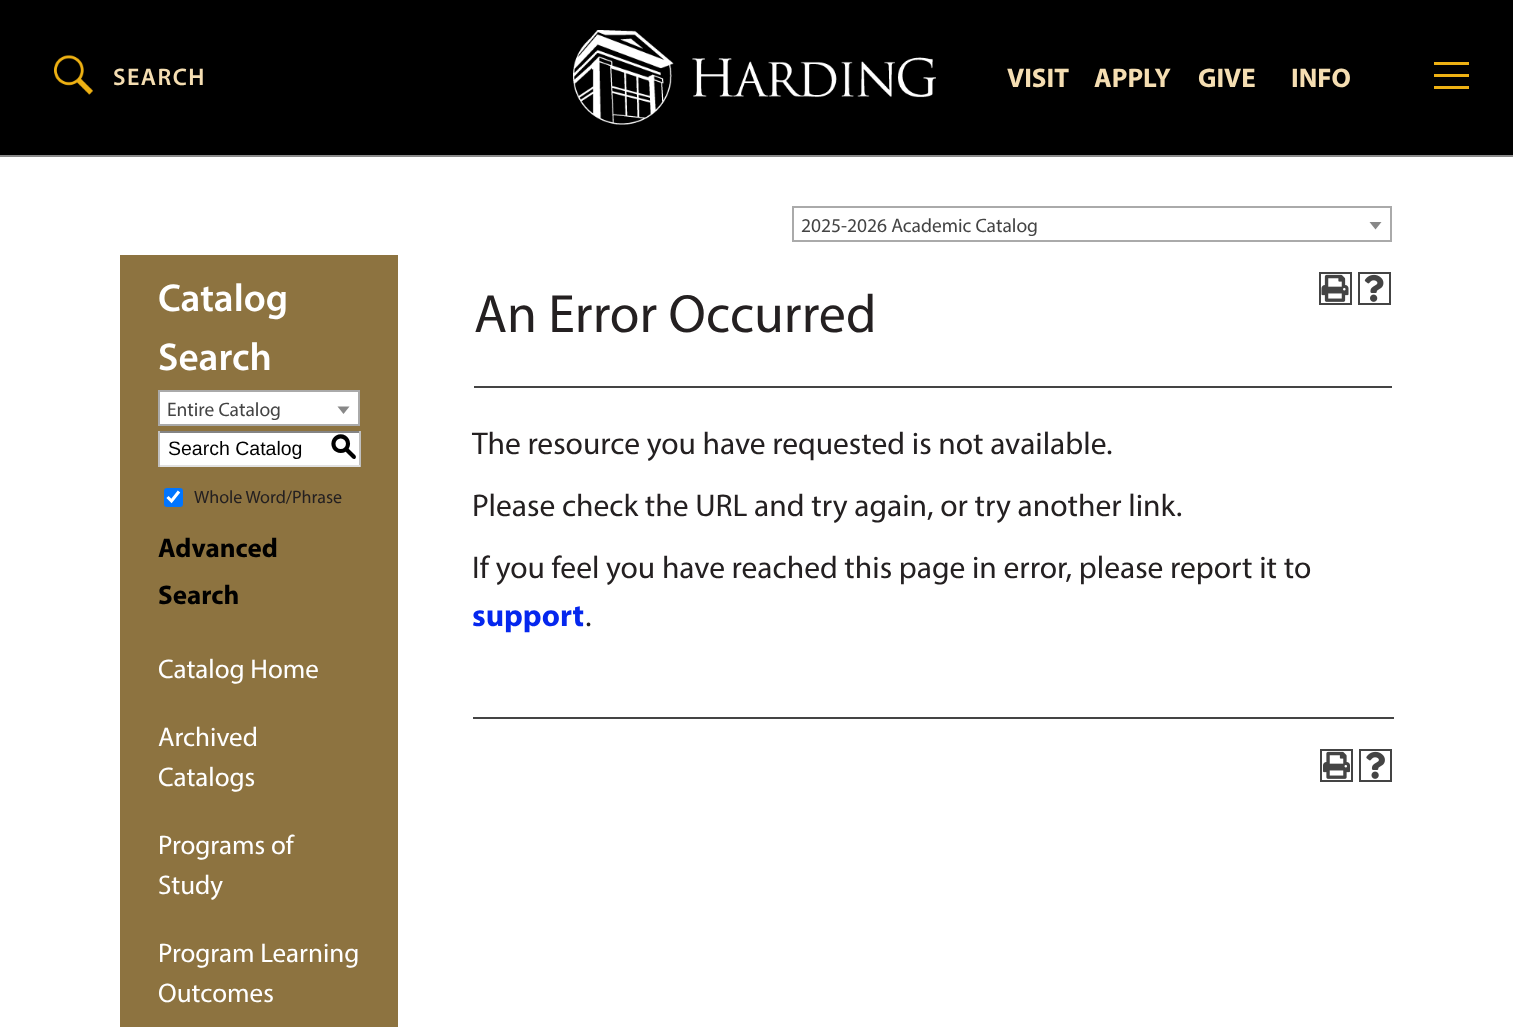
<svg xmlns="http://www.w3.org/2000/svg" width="1513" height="1027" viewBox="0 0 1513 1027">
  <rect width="100%" height="100%" fill="rgb(255,255,255)"/>
  <rect x="0" y="0" width="1513" height="155" fill="rgb(0,0,0)"/>
  <rect x="0" y="155" width="1513" height="2" fill="rgb(136,136,136)"/>
  <image x="54" y="55" width="39" height="40" href="pic1.png"/>
  <text x="113" y="85" font-family="Myriad" font-size="24" font-weight="600" letter-spacing="1.5" fill="rgb(245,222,178)">SEARCH</text>
  <image x="573" y="30" width="101" height="95" href="pic2.png"/>
  <image x="692" y="57" width="244" height="41" href="pic3.png"/>
  <g font-family="Myriad" font-size="27" font-weight="bold" fill="rgb(245,222,178)">
    <text x="1007" y="87">VISIT</text>
    <text x="1094" y="87">APPLY</text>
    <text x="1198" y="87">GIVE</text>
    <text x="1291" y="87">INFO</text>
  </g>
  <rect x="1434" y="62" width="35" height="3" fill="rgb(238,177,19)"/>
  <rect x="1434" y="74" width="35" height="3" fill="rgb(238,177,19)"/>
  <rect x="1434" y="86" width="35" height="3" fill="rgb(238,177,19)"/>
  <rect x="793" y="207" width="598" height="34" fill="none" stroke="rgb(170,170,170)" stroke-width="2"/>
  <text x="801" y="232" font-family="Myriad" font-size="19.5" fill="rgb(68,68,68)">2025-2026 Academic Catalog</text>
  <path d="M1369.5 222H1381.5L1375.5 229.5Z" fill="rgb(136,136,136)"/>
  <rect x="120" y="255" width="278" height="772" fill="rgb(141,115,64)"/>
  <g font-family="Myriad" font-size="39" font-weight="600" fill="rgb(255,255,255)">
    <text>
      <tspan x="158" y="311">Catalog</tspan>
      <tspan x="158" y="370">Search</tspan>
    </text>
  </g>
  <rect x="159" y="391" width="200" height="34" fill="rgb(255,255,255)" stroke="rgb(170,170,170)" stroke-width="2"/>
  <text x="167" y="416" font-family="Myriad" font-size="19.5" fill="rgb(68,68,68)">Entire Catalog</text>
  <path d="M337.5 406.5H349.5L343.5 414Z" fill="rgb(136,136,136)"/>
  <rect x="160" y="433" width="199" height="32" fill="rgb(255,255,255)"/>
  <rect x="158" y="431" width="202" height="2" fill="rgb(132,132,132)"/>
  <rect x="359" y="431" width="2" height="36" fill="rgb(193,193,193)"/>
  <rect x="158" y="465" width="202" height="2" fill="rgb(225,225,225)"/>
  <rect x="158" y="431" width="2" height="36" fill="rgb(193,193,193)"/>
  <text x="168" y="455" font-family="Liberation Sans" font-size="19.5" fill="rgb(0,0,0)">Search Catalog</text>
  <text x="330" y="455" font-family="'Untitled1'" font-size="27" font-weight="500" fill="rgb(0,0,0)">S</text>
  <rect x="164" y="488" width="19" height="19" rx="3" fill="rgb(0,117,255)"/>
  <path d="M167.5 497L171.5 501L179 491.5" fill="none" stroke="rgb(255,255,255)" stroke-width="3.1"/>
  <text x="194" y="503" font-family="Myriad" font-size="18" fill="rgb(36,32,33)">Whole Word/Phrase</text>
  <g font-family="Myriad" font-size="27" font-weight="bold" fill="rgb(0,0,0)">
    <text>
      <tspan x="158" y="557">Advanced</tspan>
      <tspan x="158" y="604">Search</tspan>
    </text>
  </g>
  <g font-family="Myriad" font-size="27" fill="rgb(255,255,255)">
    <text x="158" y="678">Catalog Home</text>
    <text>
      <tspan x="158" y="746">Archived</tspan>
      <tspan x="158" y="786">Catalogs</tspan>
    </text>
    <text>
      <tspan x="158" y="854">Programs of</tspan>
      <tspan x="158" y="894">Study</tspan>
    </text>
    <text>
      <tspan x="158" y="962">Program Learning</tspan>
      <tspan x="158" y="1002">Outcomes</tspan>
    </text>
  </g>
  <rect x="1320" y="273" width="31" height="31" fill="none" stroke="rgb(68,68,68)" stroke-width="2"/>
  <image x="1321" y="274" width="28" height="28" href="pic4.png"/>
  <rect x="1359" y="273" width="31" height="31" fill="none" stroke="rgb(68,68,68)" stroke-width="2"/>
  <image x="1364" y="274" width="20" height="28" href="pic5.png"/>
  <text x="474" y="332" font-family="Myriad" font-size="54" fill="rgb(36,32,33)">An Error Occurred</text>
  <rect x="474" y="386" width="918" height="2" fill="rgb(68,68,68)"/>
  <g font-family="Myriad" font-size="31.5" fill="rgb(36,32,33)">
    <text>
      <tspan x="472" y="454">The resource you have requested is not available.</tspan>
      <tspan x="472" y="516">Please check the URL and try again, or try another link.</tspan>
      <tspan x="472" y="578">If you feel you have reached this page in error, please report it to</tspan>
    </text>
  </g>
  <text x="472" y="626" font-family="Myriad" font-size="31.5" font-weight="bold" fill="rgb(5,39,238)">support</text>
  <text x="585" y="626" font-family="Myriad" font-size="31.5" fill="rgb(36,32,33)">.</text>
  <rect x="473" y="717" width="921" height="2" fill="rgb(68,68,68)"/>
  <rect x="1321" y="750" width="31" height="31" fill="none" stroke="rgb(68,68,68)" stroke-width="2"/>
  <image x="1323" y="751" width="27" height="28" href="pic6.png"/>
  <rect x="1360" y="750" width="31" height="31" fill="none" stroke="rgb(68,68,68)" stroke-width="2"/>
  <image x="1366" y="751" width="19" height="28" href="pic7.png"/>
</svg>
